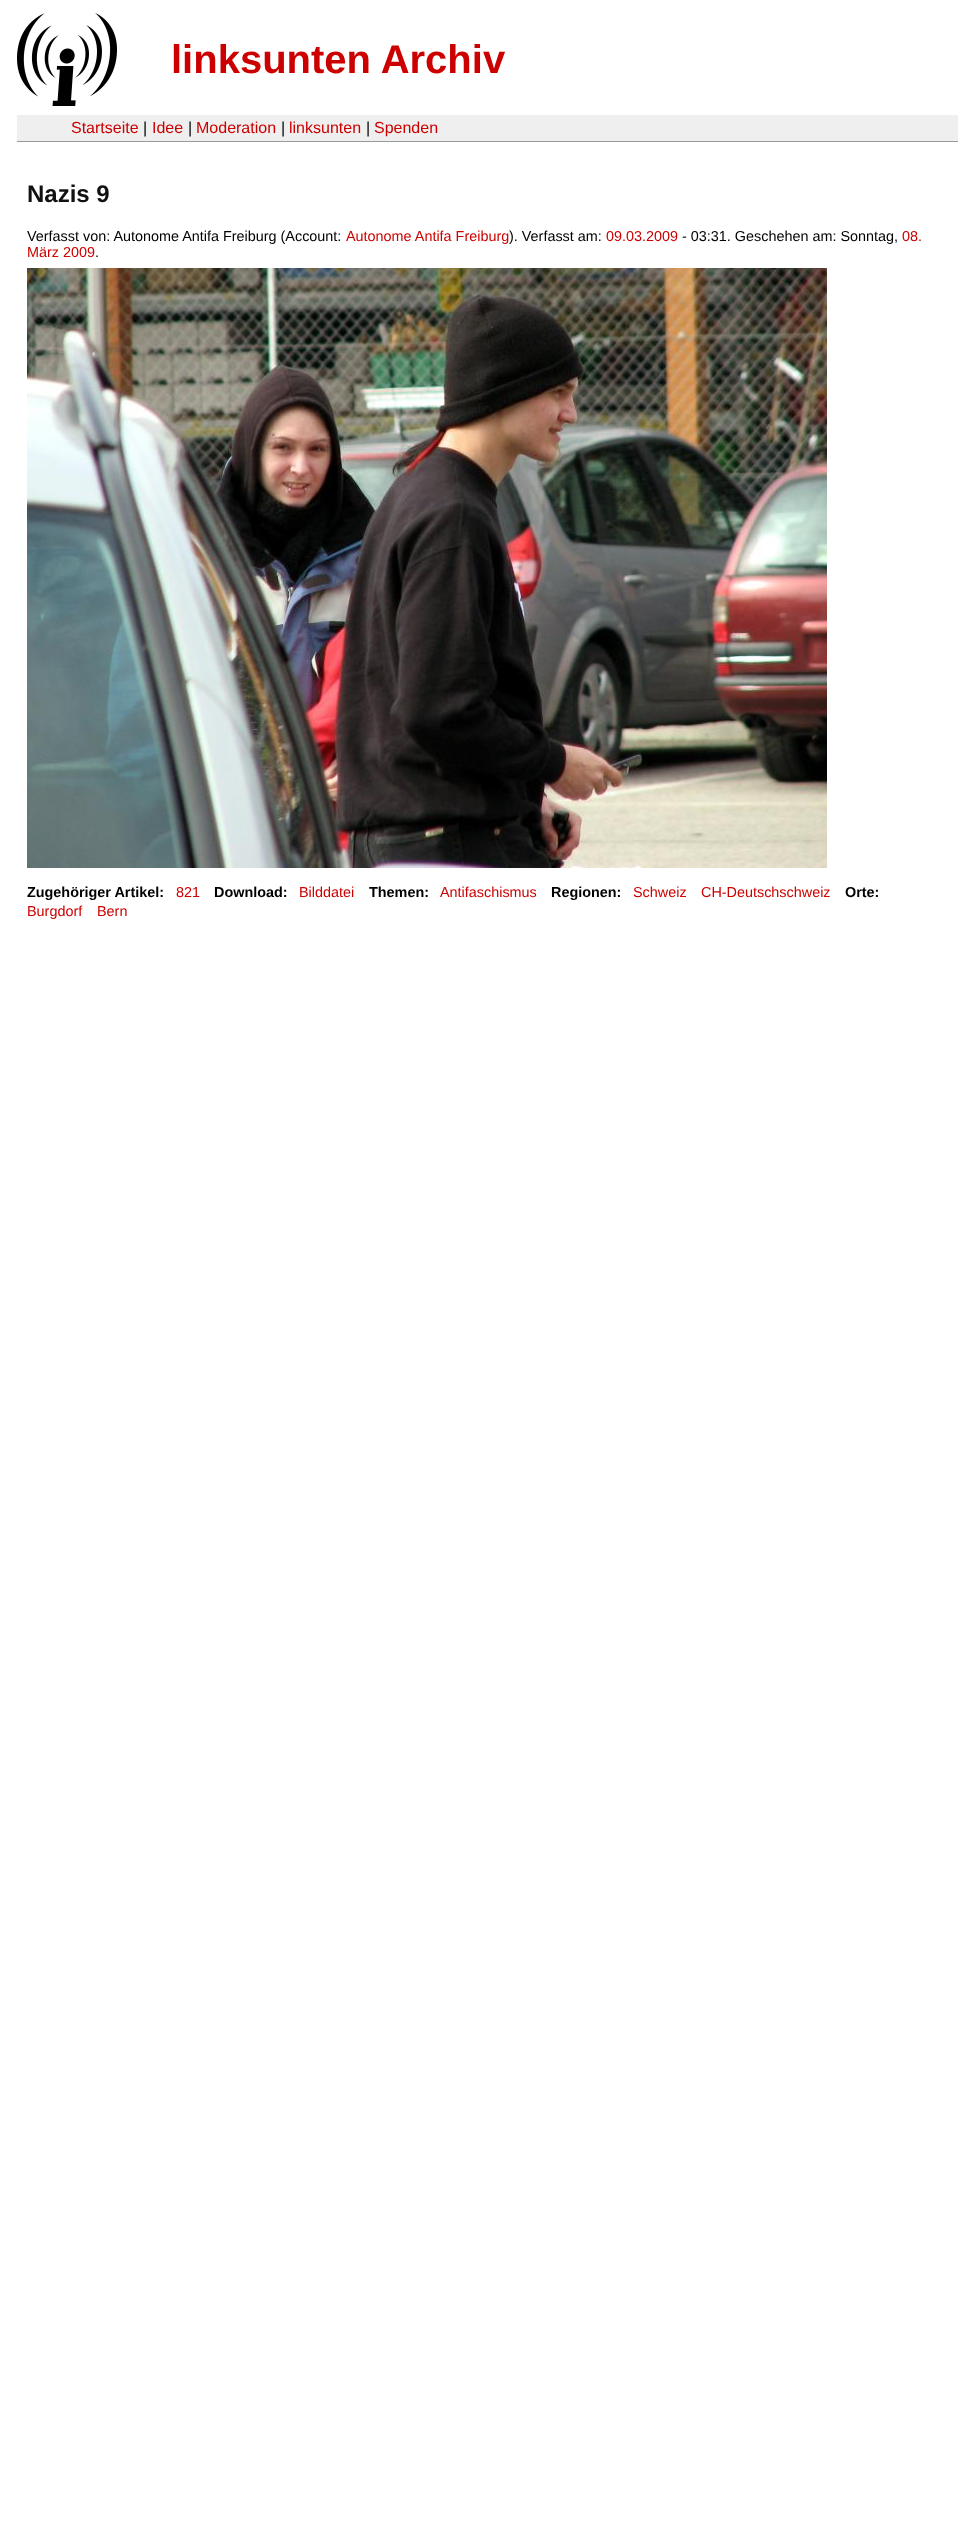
<svg xmlns="http://www.w3.org/2000/svg" width="975" height="2526" viewBox="0 0 975 2526">
  <rect width="100%" height="100%" fill="rgb(255,255,255)"/>
  <image x="17" y="13" width="100" height="93" href="pic1.png"/>
  <text x="171" y="73" font-family="Liberation Sans" font-size="40" font-weight="bold" fill="rgb(204,0,0)">linksunten Archiv</text>
  <rect x="17" y="115" width="941" height="26" fill="rgb(239,239,239)"/>
  <rect x="17" y="141" width="941" height="1" fill="rgb(153,153,153)"/>
  <text x="71" y="133" font-family="Liberation Sans" font-size="16" fill="rgb(204,0,0)">Startseite</text>
  <text x="143" y="133" font-family="Liberation Sans" font-size="16" fill="rgb(0,0,0)">|</text>
  <text x="152" y="133" font-family="Liberation Sans" font-size="16" fill="rgb(204,0,0)">Idee</text>
  <text x="188" y="133" font-family="Liberation Sans" font-size="16" fill="rgb(0,0,0)">|</text>
  <text x="196" y="133" font-family="Liberation Sans" font-size="16" fill="rgb(204,0,0)">Moderation</text>
  <text x="281" y="133" font-family="Liberation Sans" font-size="16" fill="rgb(0,0,0)">|</text>
  <text x="289" y="133" font-family="Liberation Sans" font-size="16" fill="rgb(204,0,0)">linksunten</text>
  <text x="366" y="133" font-family="Liberation Sans" font-size="16" fill="rgb(0,0,0)">|</text>
  <text x="374" y="133" font-family="Liberation Sans" font-size="16" fill="rgb(204,0,0)">Spenden</text>
  <text x="27" y="202" font-family="Liberation Sans" font-size="24" font-weight="bold" fill="rgb(17,17,17)">Nazis 9</text>
  <text x="27" y="241" font-family="Liberation Sans" font-size="14.4" fill="rgb(0,0,0)">Verfasst von: Autonome Antifa Freiburg (Account:</text>
  <text x="346" y="241" font-family="Liberation Sans" font-size="14.4" fill="rgb(204,0,0)">Autonome Antifa Freiburg</text>
  <text x="509" y="241" font-family="Liberation Sans" font-size="14.4" fill="rgb(0,0,0)">). Verfasst am:</text>
  <text x="606" y="241" font-family="Liberation Sans" font-size="14.4" fill="rgb(204,0,0)">09.03.2009</text>
  <text x="682" y="241" font-family="Liberation Sans" font-size="14.4" fill="rgb(0,0,0)">- 03:31. Geschehen am: Sonntag,</text>
  <g font-family="Liberation Sans" font-size="14.4" fill="rgb(204,0,0)">
    <text x="902" y="241">08.</text>
    <text x="27" y="257">März 2009</text>
  </g>
  <text x="95" y="257" font-family="Liberation Sans" font-size="14.4" fill="rgb(0,0,0)">.</text>
  <image x="27" y="268" width="800" height="600" href="pic2.png"/>
  <text x="27" y="897" font-family="Liberation Sans" font-size="14.4" font-weight="bold" fill="rgb(0,0,0)">Zugehöriger Artikel:</text>
  <text x="176" y="897" font-family="Liberation Sans" font-size="14.4" fill="rgb(204,0,0)">821</text>
  <text x="214" y="897" font-family="Liberation Sans" font-size="14.4" font-weight="bold" fill="rgb(0,0,0)">Download:</text>
  <text x="299" y="897" font-family="Liberation Sans" font-size="14.4" fill="rgb(204,0,0)">Bilddatei</text>
  <text x="845" y="897" font-family="Liberation Sans" font-size="14.4" font-weight="bold" fill="rgb(0,0,0)">Orte:</text>
  <g font-family="Liberation Sans" font-size="14.4" fill="rgb(204,0,0)">
    <text x="27" y="916">Burgdorf</text>
    <text x="97" y="916">Bern</text>
  </g>
  <text x="369" y="897" font-family="Liberation Sans" font-size="14.4" font-weight="bold" fill="rgb(0,0,0)">Themen:</text>
  <text x="440" y="897" font-family="Liberation Sans" font-size="14.4" fill="rgb(204,0,0)">Antifaschismus</text>
  <text x="551" y="897" font-family="Liberation Sans" font-size="14.4" font-weight="bold" fill="rgb(0,0,0)">Regionen:</text>
  <g font-family="Liberation Sans" font-size="14.4" fill="rgb(204,0,0)">
    <text x="633" y="897">Schweiz</text>
    <text x="701" y="897">CH-Deutschschweiz</text>
  </g>
</svg>
